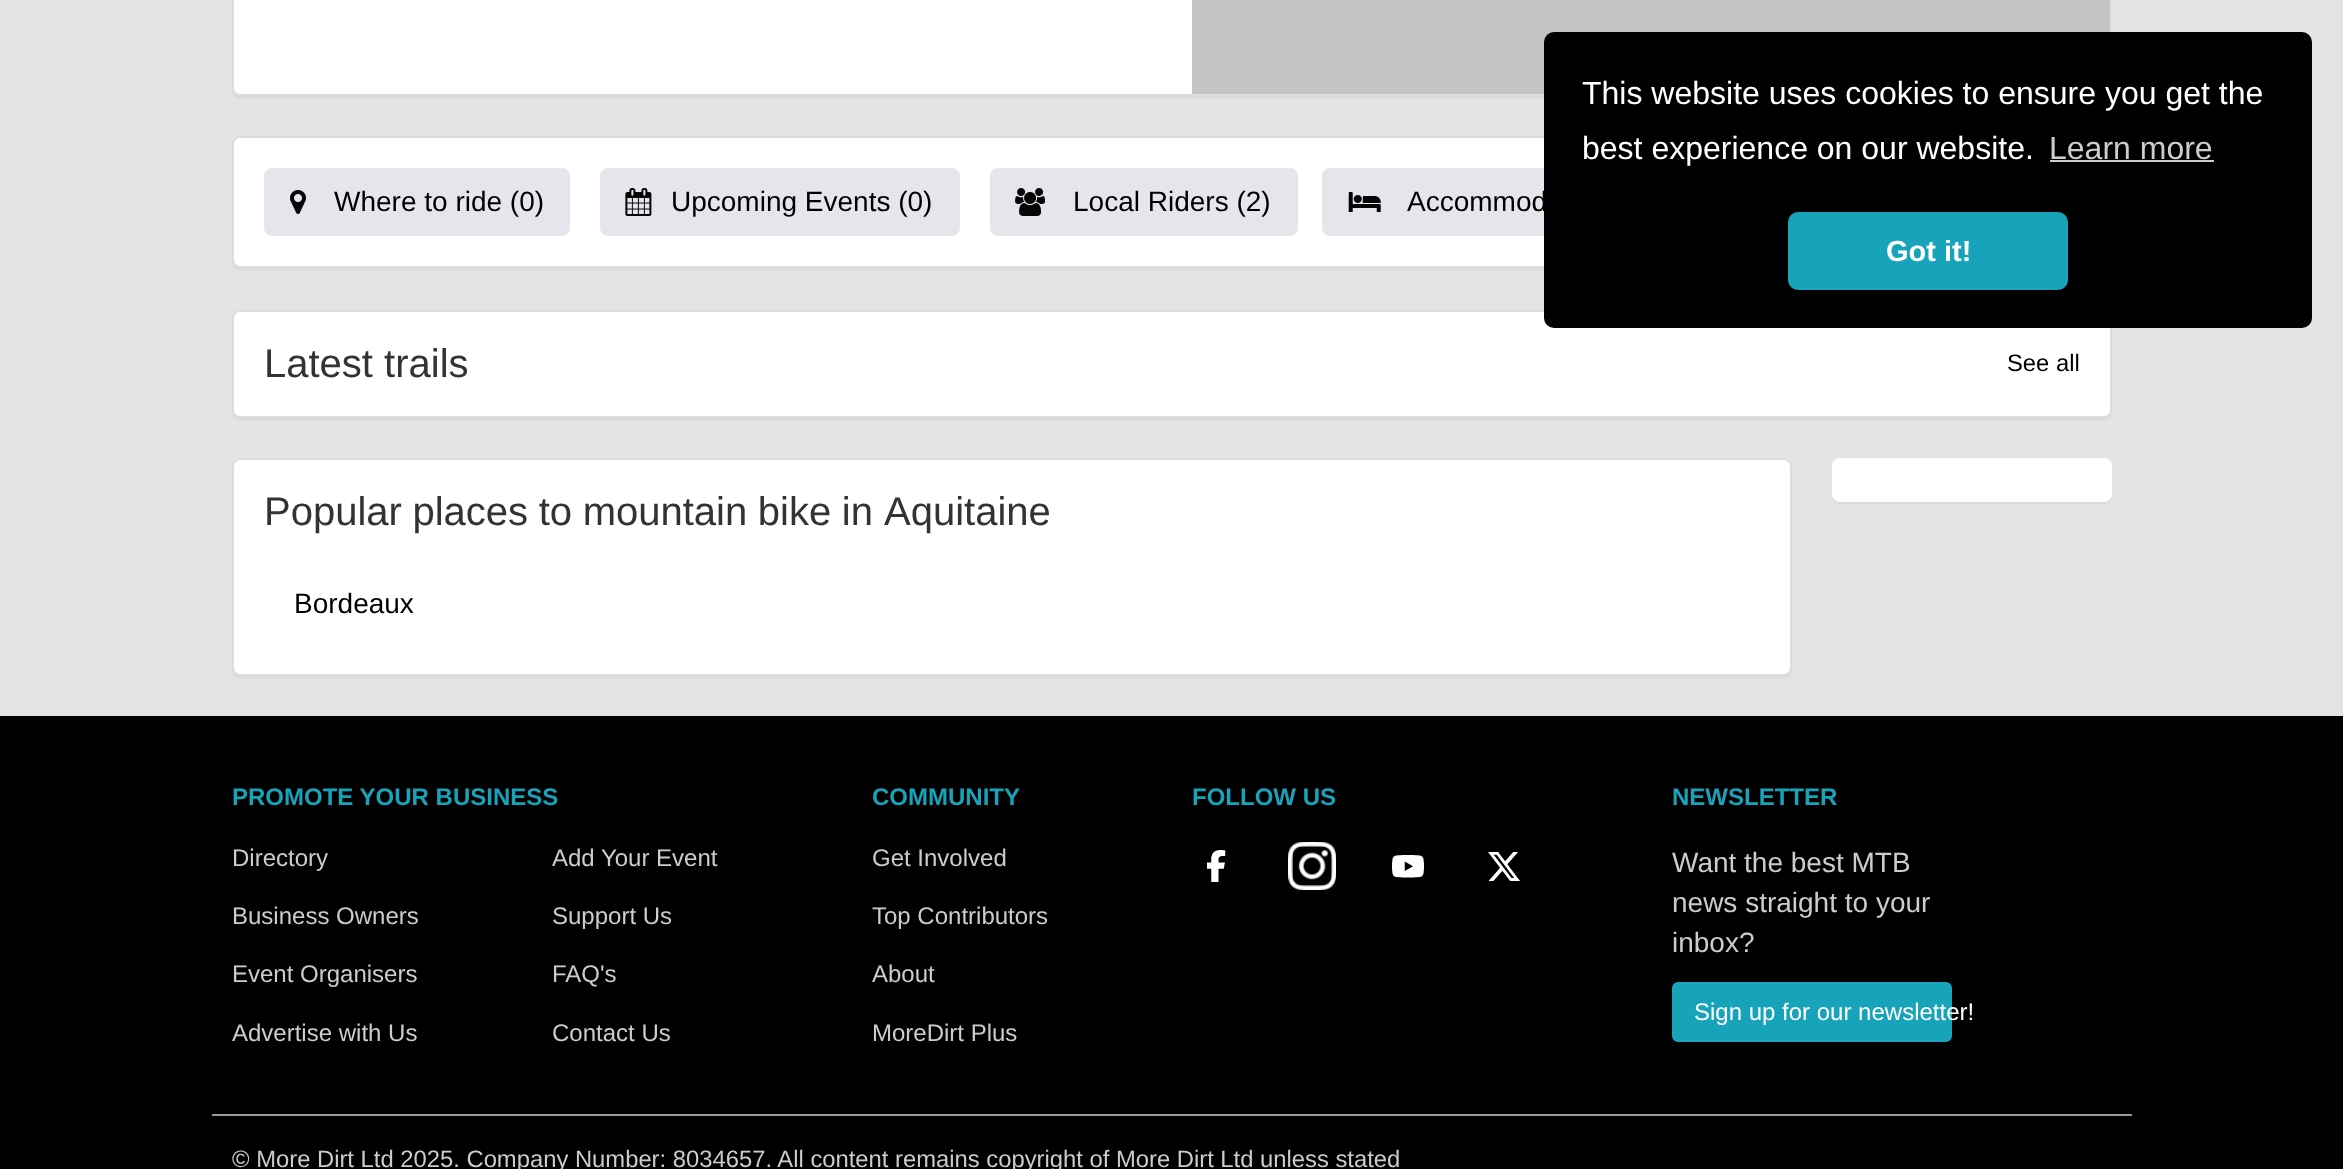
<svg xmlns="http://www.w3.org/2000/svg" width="2343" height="1169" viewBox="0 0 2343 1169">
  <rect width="100%" height="100%" fill="rgb(228,228,228)"/>
  <rect x="232" y="-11" width="1880" height="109" rx="8" fill="rgba(0,0,0,0.05)" filter="blur(1px)"/>
  <rect x="233" y="-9" width="1878" height="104" rx="7" fill="rgb(255,255,255)" stroke="rgb(221,221,221)" stroke-width="2"/>
  <rect x="1192" y="0" width="918" height="94" fill="rgb(196,196,196)"/>
  <rect x="232" y="138" width="1880" height="132" rx="8" fill="rgba(0,0,0,0.05)" filter="blur(1px)"/>
  <rect x="233" y="137" width="1878" height="130" rx="7" fill="rgb(255,255,255)" stroke="rgb(221,221,221)" stroke-width="2"/>
  <rect x="1323" y="169" width="310" height="66" rx="7" fill="rgb(228,230,235)" stroke="rgb(228,230,235)" stroke-width="2"/>
  <rect x="232" y="312" width="1880" height="108" rx="8" fill="rgba(0,0,0,0.05)" filter="blur(1px)"/>
  <rect x="233" y="311" width="1878" height="106" rx="7" fill="rgb(255,255,255)" stroke="rgb(221,221,221)" stroke-width="2"/>
  <rect x="1544" y="32" width="768" height="296" rx="10" fill="rgb(0,0,0)"/>
  <g font-family="Liberation Sans" font-size="32" fill="rgb(255,255,255)">
    <text>
      <tspan x="1582" y="104">This website uses cookies to ensure you get the</tspan>
      <tspan x="1582" y="159">best experience on our website.</tspan>
    </text>
  </g>
  <text x="2049" y="159" font-family="Liberation Sans" font-size="32" fill="rgb(204,204,204)">Learn more</text>
  <rect x="2050" y="160" width="164" height="2" fill="rgb(204,204,204)"/>
  <rect x="1788" y="212" width="280" height="78" rx="10" fill="rgb(23,164,186)"/>
  <text x="1886" y="261" font-family="Liberation Sans" font-size="29" font-weight="bold" fill="rgb(255,255,255)">Got it!</text>
  <rect x="265" y="169" width="304" height="66" rx="7" fill="rgb(228,230,235)" stroke="rgb(228,230,235)" stroke-width="2"/>
  <image x="290" y="190" width="16" height="24" href="pic1.png"/>
  <text x="334" y="211" font-family="Liberation Sans" font-size="28" fill="rgb(0,0,0)">Where to ride (0)</text>
  <rect x="601" y="169" width="358" height="66" rx="7" fill="rgb(228,230,235)" stroke="rgb(228,230,235)" stroke-width="2"/>
  <image x="625" y="188" width="27" height="28" href="pic2.png"/>
  <text x="671" y="211" font-family="Liberation Sans" font-size="28" fill="rgb(0,0,0)">Upcoming Events (0)</text>
  <rect x="991" y="169" width="306" height="66" rx="7" fill="rgb(228,230,235)" stroke="rgb(228,230,235)" stroke-width="2"/>
  <image x="1015" y="188" width="31" height="28" href="pic3.png"/>
  <text x="1073" y="211" font-family="Liberation Sans" font-size="28" fill="rgb(0,0,0)">Local Riders (2)</text>
  <image x="1348" y="192" width="33" height="20" href="pic4.png"/>
  <text x="1407" y="211" font-family="Liberation Sans" font-size="28" fill="rgb(0,0,0)">Accommod</text>
  <text x="264" y="377" font-family="Liberation Sans" font-size="40" fill="rgb(51,51,51)">Latest trails</text>
  <text x="2007" y="371" font-family="Liberation Sans" font-size="23.8" fill="rgb(0,0,0)">See all</text>
  <rect x="1832" y="460" width="280" height="44" rx="8" fill="rgba(0,0,0,0.05)" filter="blur(1px)"/>
  <rect x="1832" y="458" width="280" height="44" rx="8" fill="rgb(255,255,255)"/>
  <rect x="232" y="460" width="1560" height="218" rx="8" fill="rgba(0,0,0,0.05)" filter="blur(1px)"/>
  <rect x="233" y="459" width="1558" height="216" rx="7" fill="rgb(255,255,255)" stroke="rgb(221,221,221)" stroke-width="2"/>
  <g font-family="Liberation Sans" font-size="40" fill="rgb(51,51,51)">
    <text x="264" y="525" word-spacing="-0.5">Popular places to mountain bike in</text>
    <text x="884" y="525">Aquitaine</text>
  </g>
  <text x="294" y="613" font-family="Liberation Sans" font-size="28" fill="rgb(0,0,0)">Bordeaux</text>
  <rect x="0" y="716" width="2343" height="453" fill="rgb(0,0,0)"/>
  <text x="232" y="805" font-family="Liberation Sans" font-size="24" font-weight="bold" fill="rgb(23,164,186)">PROMOTE YOUR BUSINESS</text>
  <g font-family="Liberation Sans" font-size="24" fill="rgb(204,204,204)">
    <text x="232" y="866">Directory</text>
    <text x="232" y="924">Business Owners</text>
    <text x="232" y="982">Event Organisers</text>
    <text x="232" y="1041">Advertise with Us</text>
    <text x="552" y="866">Add Your Event</text>
    <text x="552" y="924">Support Us</text>
    <text x="552" y="982">FAQ's</text>
    <text x="552" y="1041">Contact Us</text>
  </g>
  <text x="872" y="805" font-family="Liberation Sans" font-size="24" font-weight="bold" fill="rgb(23,164,186)">COMMUNITY</text>
  <g font-family="Liberation Sans" font-size="24" fill="rgb(204,204,204)">
    <text x="872" y="866">Get Involved</text>
    <text x="872" y="924">Top Contributors</text>
    <text x="872" y="982">About</text>
    <text x="872" y="1041">MoreDirt Plus</text>
  </g>
  <text x="1192" y="805" font-family="Liberation Sans" font-size="24" font-weight="bold" fill="rgb(23,164,186)">FOLLOW US</text>
  <image x="1207" y="850" width="19" height="32" href="pic5.png"/>
  <image x="1288" y="842" width="48" height="48" href="pic6.png"/>
  <image x="1392" y="855" width="32" height="23" href="pic7.png"/>
  <image x="1488" y="852" width="32" height="29" href="pic8.png"/>
  <text x="1672" y="805" font-family="Liberation Sans" font-size="24" font-weight="bold" fill="rgb(23,164,186)">NEWSLETTER</text>
  <g font-family="Liberation Sans" font-size="28" fill="rgb(204,204,204)">
    <text>
      <tspan x="1672" y="872">Want the best MTB</tspan>
      <tspan x="1672" y="912">news straight to your</tspan>
      <tspan x="1672" y="952">inbox?</tspan>
    </text>
  </g>
  <rect x="1673" y="983" width="278" height="58" rx="5" fill="rgb(23,164,186)" stroke="rgb(23,164,186)" stroke-width="2"/>
  <text x="1694" y="1020" font-family="Liberation Sans" font-size="24" fill="rgb(255,255,255)">Sign up for our newsletter!</text>
  <rect x="212" y="1114" width="1920" height="2" fill="rgb(153,153,153)"/>
  <text x="232" y="1167" font-family="Liberation Sans" font-size="23.8" fill="rgb(204,204,204)">© More Dirt Ltd 2025. Company Number: 8034657. All content remains copyright of More Dirt Ltd unless stated</text>
</svg>
